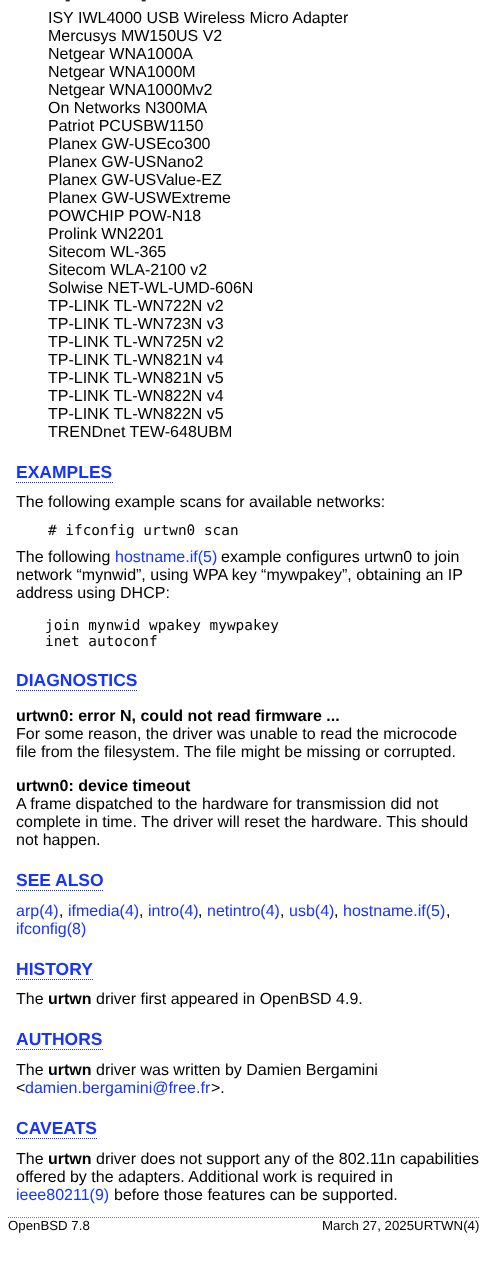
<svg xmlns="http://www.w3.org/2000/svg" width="488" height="1265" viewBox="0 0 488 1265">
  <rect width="100%" height="100%" fill="rgb(255,255,255)"/>
  <g font-family="Liberation Sans" font-size="16" fill="rgb(0,0,0)">
    <text x="65" y="5">-</text>
    <text x="141" y="5">-</text>
    <text>
      <tspan x="48" y="23">ISY IWL4000 USB Wireless Micro Adapter</tspan>
      <tspan x="48" y="41">Mercusys MW150US V2</tspan>
      <tspan x="48" y="59">Netgear WNA1000A</tspan>
      <tspan x="48" y="77">Netgear WNA1000M</tspan>
      <tspan x="48" y="95">Netgear WNA1000Mv2</tspan>
      <tspan x="48" y="113">On Networks N300MA</tspan>
      <tspan x="48" y="131">Patriot PCUSBW1150</tspan>
      <tspan x="48" y="149">Planex GW-USEco300</tspan>
      <tspan x="48" y="167">Planex GW-USNano2</tspan>
      <tspan x="48" y="185">Planex GW-USValue-EZ</tspan>
      <tspan x="48" y="203">Planex GW-USWExtreme</tspan>
      <tspan x="48" y="221">POWCHIP POW-N18</tspan>
      <tspan x="48" y="239">Prolink WN2201</tspan>
      <tspan x="48" y="257">Sitecom WL-365</tspan>
      <tspan x="48" y="275">Sitecom WLA-2100 v2</tspan>
      <tspan x="48" y="293">Solwise NET-WL-UMD-606N</tspan>
      <tspan x="48" y="311">TP-LINK TL-WN722N v2</tspan>
      <tspan x="48" y="329">TP-LINK TL-WN723N v3</tspan>
      <tspan x="48" y="347">TP-LINK TL-WN725N v2</tspan>
      <tspan x="48" y="365">TP-LINK TL-WN821N v4</tspan>
      <tspan x="48" y="383">TP-LINK TL-WN821N v5</tspan>
      <tspan x="48" y="401">TP-LINK TL-WN822N v4</tspan>
      <tspan x="48" y="419">TP-LINK TL-WN822N v5</tspan>
      <tspan x="48" y="437">TRENDnet TEW-648UBM</tspan>
    </text>
  </g>
  <text x="16" y="478" font-family="Liberation Sans" font-size="17.5" font-weight="bold" fill="rgb(23,52,250)">EXAMPLES</text>
  <path d="M16 482.5H113" fill="none" stroke="rgb(23,52,250)" stroke-dasharray="1 1"/>
  <text x="16" y="507" font-family="Liberation Sans" font-size="16" fill="rgb(0,0,0)">The following example scans for available networks:</text>
  <text x="48" y="535" font-family="DejaVu Sans Mono" font-size="14.4" fill="rgb(0,0,0)"># ifconfig urtwn0 scan</text>
  <text x="16" y="562" font-family="Liberation Sans" font-size="16" fill="rgb(0,0,0)">The following</text>
  <text x="115" y="562" font-family="Liberation Sans" font-size="16" fill="rgb(23,52,250)">hostname.if(5)</text>
  <g font-family="Liberation Sans" font-size="16" fill="rgb(0,0,0)">
    <text x="221" y="562">example configures urtwn0 to join</text>
    <text>
      <tspan x="16" y="580">network “mynwid”, using WPA key “mywpakey”, obtaining an IP</tspan>
      <tspan x="16" y="598">address using DHCP:</tspan>
    </text>
  </g>
  <g font-family="DejaVu Sans Mono" font-size="14.4" fill="rgb(0,0,0)">
    <text>
      <tspan x="45" y="630">join mynwid wpakey mywpakey</tspan>
      <tspan x="45" y="646">inet autoconf</tspan>
    </text>
  </g>
  <text x="16" y="686" font-family="Liberation Sans" font-size="17.5" font-weight="bold" fill="rgb(23,52,250)">DIAGNOSTICS</text>
  <path d="M16 690.5H138" fill="none" stroke="rgb(23,52,250)" stroke-dasharray="1 1"/>
  <text x="16" y="721" font-family="Liberation Sans" font-size="16" font-weight="bold" fill="rgb(0,0,0)">urtwn0: error N, could not read firmware ...</text>
  <g font-family="Liberation Sans" font-size="16" fill="rgb(0,0,0)">
    <text>
      <tspan x="16" y="739">For some reason, the driver was unable to read the microcode</tspan>
      <tspan x="16" y="757">file from the filesystem. The file might be missing or corrupted.</tspan>
    </text>
  </g>
  <text x="16" y="791" font-family="Liberation Sans" font-size="16" font-weight="bold" fill="rgb(0,0,0)">urtwn0: device timeout</text>
  <g font-family="Liberation Sans" font-size="16" fill="rgb(0,0,0)">
    <text>
      <tspan x="16" y="809">A frame dispatched to the hardware for transmission did not</tspan>
      <tspan x="16" y="827">complete in time. The driver will reset the hardware. This should</tspan>
      <tspan x="16" y="845">not happen.</tspan>
    </text>
  </g>
  <text x="16" y="886" font-family="Liberation Sans" font-size="17.5" font-weight="bold" fill="rgb(23,52,250)">SEE</text>
  <path d="M16 890.5H104" fill="none" stroke="rgb(23,52,250)" stroke-dasharray="1 1"/>
  <text x="55" y="886" font-family="Liberation Sans" font-size="17.5" font-weight="bold" fill="rgb(23,52,250)">ALSO</text>
  <text x="16" y="916" font-family="Liberation Sans" font-size="16" fill="rgb(23,52,250)">arp(4)</text>
  <text x="59" y="916" font-family="Liberation Sans" font-size="16" fill="rgb(0,0,0)">,</text>
  <text x="68" y="916" font-family="Liberation Sans" font-size="16" fill="rgb(23,52,250)">ifmedia(4)</text>
  <text x="139" y="916" font-family="Liberation Sans" font-size="16" fill="rgb(0,0,0)">,</text>
  <text x="148" y="916" font-family="Liberation Sans" font-size="16" fill="rgb(23,52,250)">intro(4)</text>
  <text x="198" y="916" font-family="Liberation Sans" font-size="16" fill="rgb(0,0,0)">,</text>
  <text x="207" y="916" font-family="Liberation Sans" font-size="16" fill="rgb(23,52,250)">netintro(4)</text>
  <text x="280" y="916" font-family="Liberation Sans" font-size="16" fill="rgb(0,0,0)">,</text>
  <text x="289" y="916" font-family="Liberation Sans" font-size="16" fill="rgb(23,52,250)">usb(4)</text>
  <text x="334" y="916" font-family="Liberation Sans" font-size="16" fill="rgb(0,0,0)">,</text>
  <text x="343" y="916" font-family="Liberation Sans" font-size="16" fill="rgb(23,52,250)">hostname.if(5)</text>
  <text x="446" y="916" font-family="Liberation Sans" font-size="16" fill="rgb(0,0,0)">,</text>
  <text x="16" y="934" font-family="Liberation Sans" font-size="16" fill="rgb(23,52,250)">ifconfig(8)</text>
  <text x="16" y="975" font-family="Liberation Sans" font-size="17.5" font-weight="bold" fill="rgb(23,52,250)">HISTORY</text>
  <path d="M16 979.5H93" fill="none" stroke="rgb(23,52,250)" stroke-dasharray="1 1"/>
  <text x="16" y="1004" font-family="Liberation Sans" font-size="16" fill="rgb(0,0,0)">The</text>
  <text x="48" y="1004" font-family="Liberation Sans" font-size="16" font-weight="bold" fill="rgb(0,0,0)">urtwn</text>
  <text x="96" y="1004" font-family="Liberation Sans" font-size="16" fill="rgb(0,0,0)">driver first appeared in OpenBSD 4.9.</text>
  <text x="16" y="1045" font-family="Liberation Sans" font-size="17.5" font-weight="bold" fill="rgb(23,52,250)">AUTHORS</text>
  <path d="M16 1049.5H103" fill="none" stroke="rgb(23,52,250)" stroke-dasharray="1 1"/>
  <text x="16" y="1075" font-family="Liberation Sans" font-size="16" fill="rgb(0,0,0)">The</text>
  <text x="48" y="1075" font-family="Liberation Sans" font-size="16" font-weight="bold" fill="rgb(0,0,0)">urtwn</text>
  <g font-family="Liberation Sans" font-size="16" fill="rgb(0,0,0)">
    <text x="96" y="1075">driver was written by Damien Bergamini</text>
    <text x="16" y="1093">&lt;</text>
  </g>
  <text x="25" y="1093" font-family="Liberation Sans" font-size="16" fill="rgb(23,52,250)">damien.bergamini@free.fr</text>
  <text x="211" y="1093" font-family="Liberation Sans" font-size="16" fill="rgb(0,0,0)">&gt;.</text>
  <text x="16" y="1134" font-family="Liberation Sans" font-size="17.5" font-weight="bold" fill="rgb(23,52,250)">CAVEATS</text>
  <path d="M16 1138.5H97" fill="none" stroke="rgb(23,52,250)" stroke-dasharray="1 1"/>
  <text x="16" y="1164" font-family="Liberation Sans" font-size="16" fill="rgb(0,0,0)">The</text>
  <text x="48" y="1164" font-family="Liberation Sans" font-size="16" font-weight="bold" fill="rgb(0,0,0)">urtwn</text>
  <g font-family="Liberation Sans" font-size="16" fill="rgb(0,0,0)">
    <text x="96" y="1164">driver does not support any of the 802.11n capabilities</text>
    <text x="16" y="1182">offered by the adapters. Additional work is required in</text>
  </g>
  <text x="16" y="1200" font-family="Liberation Sans" font-size="16" fill="rgb(23,52,250)">ieee80211(9)</text>
  <text x="114" y="1200" font-family="Liberation Sans" font-size="16" fill="rgb(0,0,0)">before those features can be supported.</text>
  <path d="M8 1217.5H480" fill="none" stroke="rgb(128,128,128)" stroke-dasharray="1 1"/>
  <g font-family="Liberation Sans" font-size="13.25" fill="rgb(0,0,0)">
    <text x="8" y="1230">OpenBSD 7.8</text>
    <text x="322" y="1230">March 27, 2025URTWN(4)</text>
  </g>
</svg>
